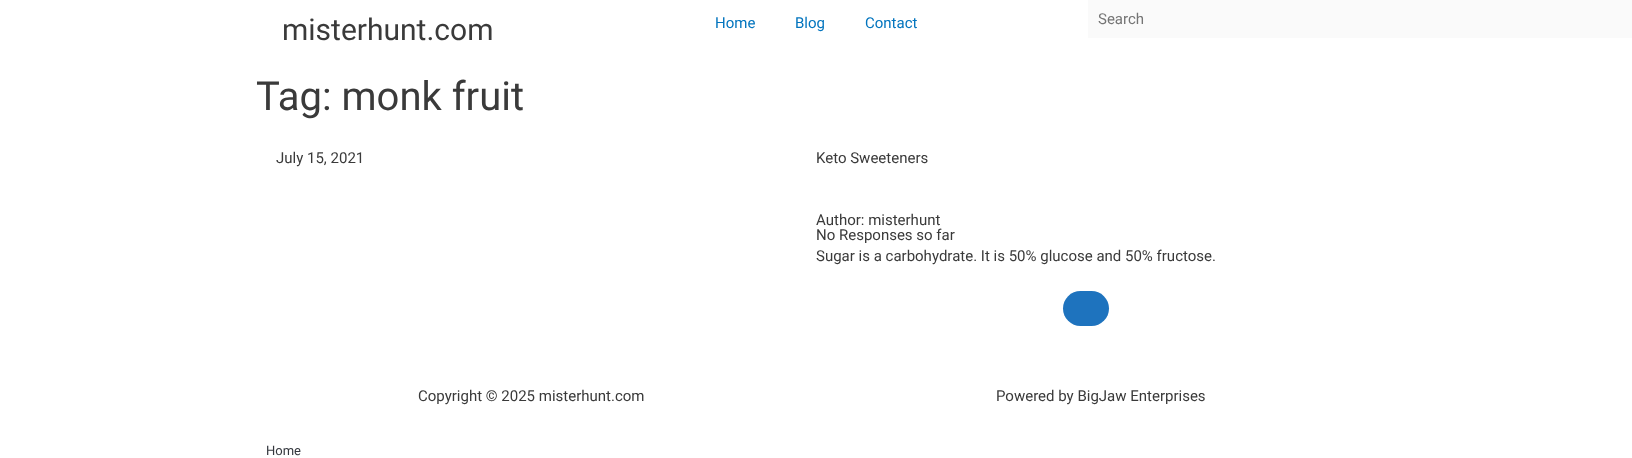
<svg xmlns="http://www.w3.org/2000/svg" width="1632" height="458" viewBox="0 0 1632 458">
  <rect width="100%" height="100%" fill="rgb(255,255,255)"/>
  <text x="282" y="40" font-family="Roboto" font-size="30" fill="rgb(58,58,58)">misterhunt.com</text>
  <g font-family="Roboto" font-size="15" fill="rgb(2,116,190)">
    <text x="715" y="28">Home</text>
    <text x="795" y="28">Blog</text>
    <text x="865" y="28">Contact</text>
  </g>
  <rect x="1088" y="0" width="544" height="38" fill="rgb(250,250,250)"/>
  <text x="1098" y="24" font-family="Roboto" font-size="15" fill="rgb(117,117,117)">Search</text>
  <text x="256" y="110" font-family="Roboto" font-size="40" fill="rgb(58,58,58)">Tag: monk fruit</text>
  <g font-family="Roboto" font-size="15" fill="rgb(58,58,58)">
    <text x="276" y="163">July 15, 2021</text>
    <text x="816" y="163">Keto Sweeteners</text>
    <text>
      <tspan x="816" y="225">Author: misterhunt</tspan>
      <tspan x="816" y="240">No Responses so far</tspan>
      <tspan x="816" y="261">Sugar is a carbohydrate. It is 50% glucose and 50% fructose.</tspan>
    </text>
  </g>
  <rect x="1063" y="291" width="46" height="35" rx="17.5" fill="rgb(30,115,190)"/>
  <g font-family="Roboto" font-size="15" fill="rgb(58,58,58)">
    <text x="418" y="401">Copyright © 2025 misterhunt.com</text>
    <text x="996" y="401">Powered by BigJaw Enterprises</text>
  </g>
  <text x="266" y="455" font-family="Roboto" font-size="13" fill="rgb(51,55,61)">Home</text>
</svg>
